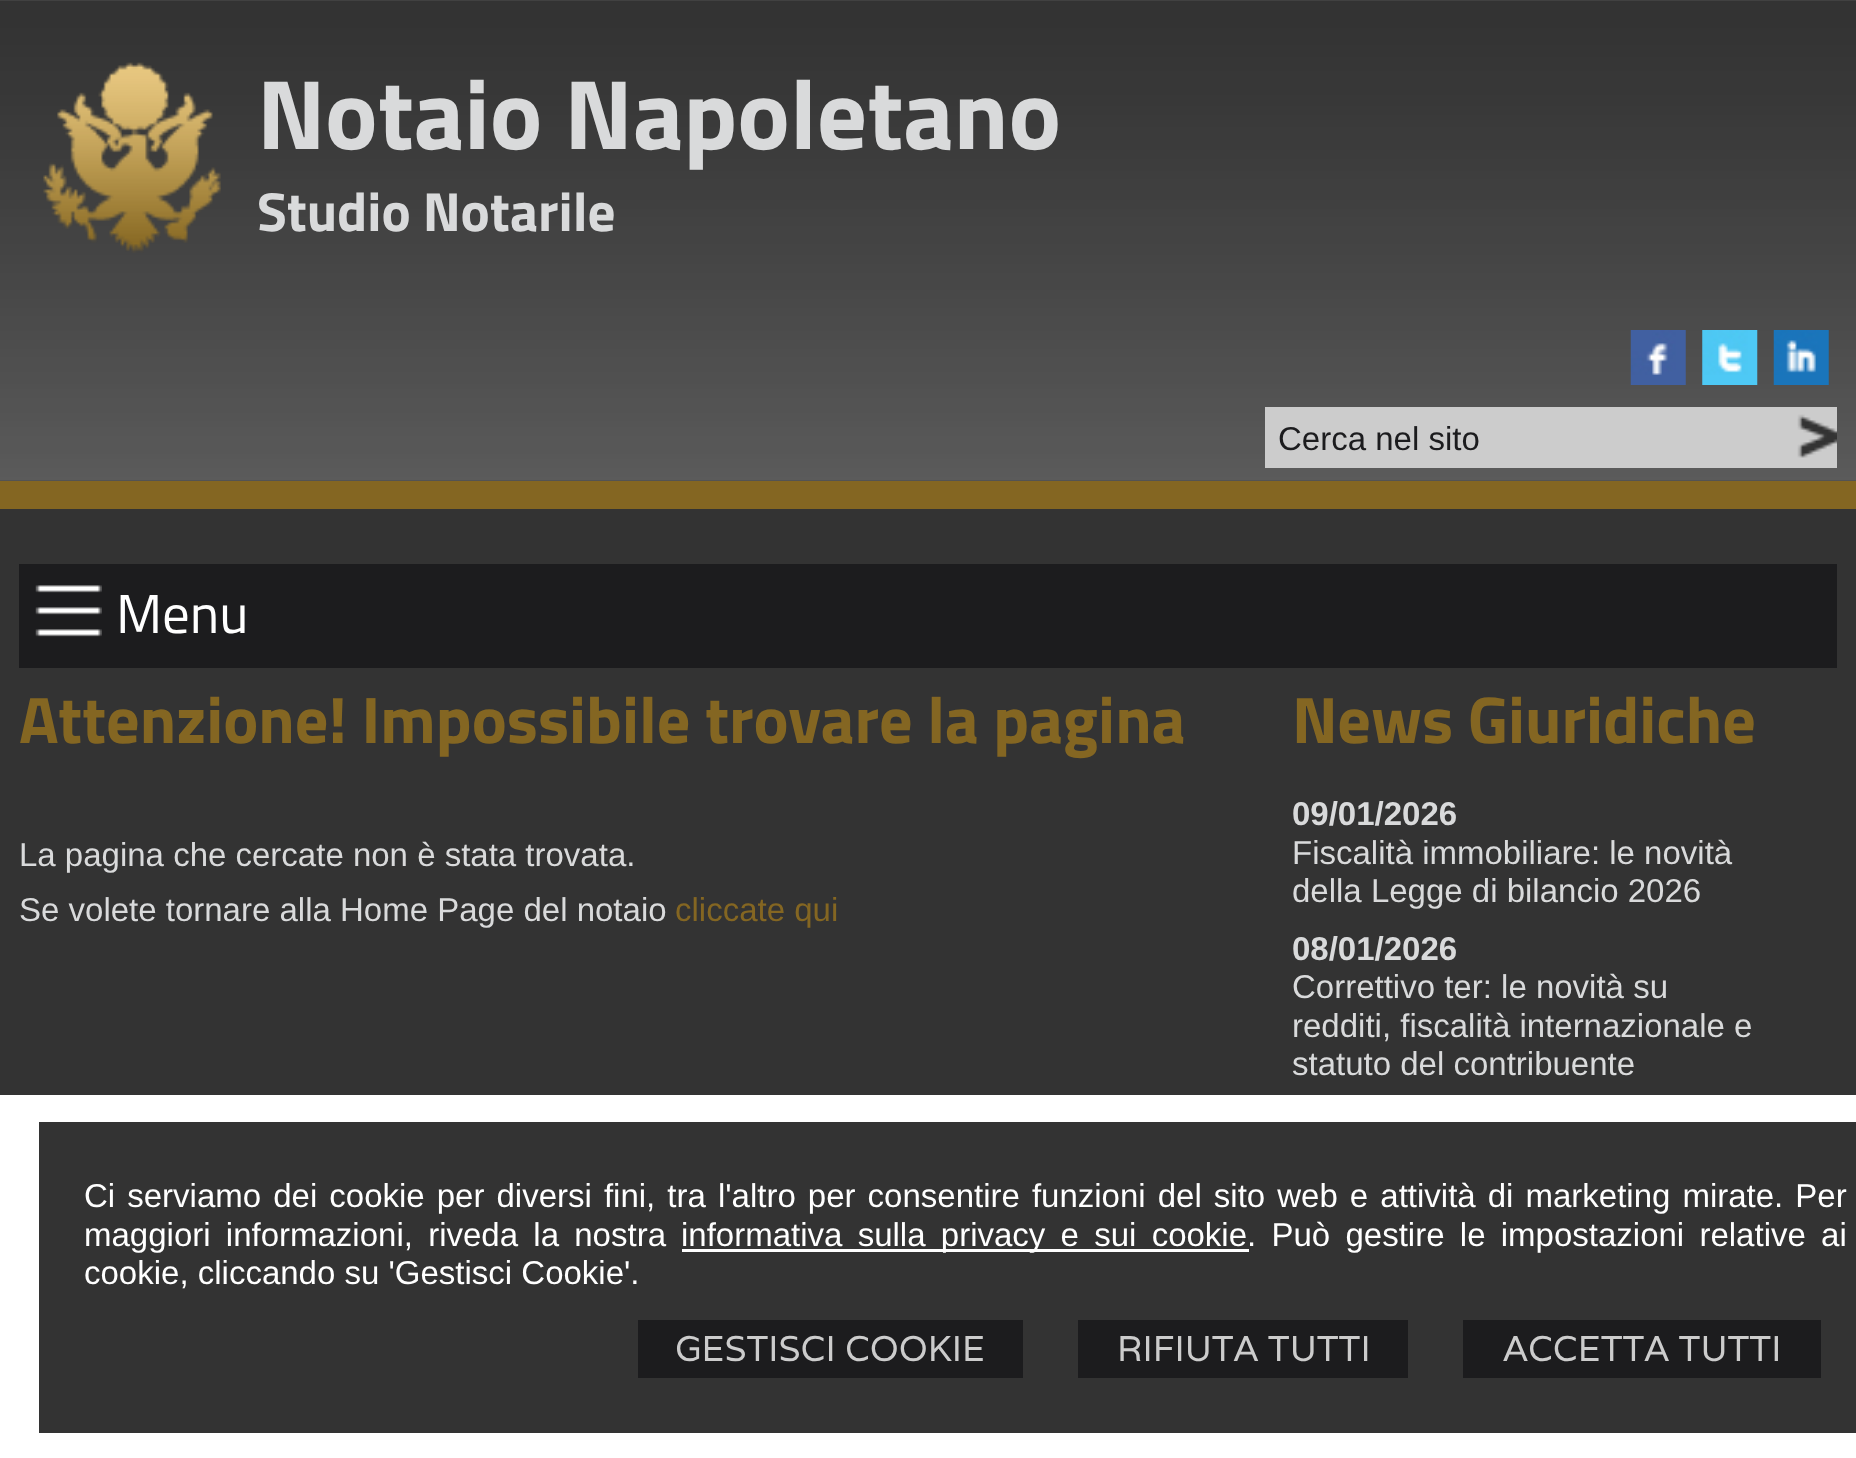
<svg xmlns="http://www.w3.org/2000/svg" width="1856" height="1458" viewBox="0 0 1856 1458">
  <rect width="100%" height="100%" fill="rgb(51,51,51)"/>
  <image x="0" y="0" width="1856" height="481" href="pic1.png"/>
  <rect x="0" y="481" width="1856" height="28" fill="rgb(132,102,34)"/>
  <image x="43" y="62" width="178" height="191" href="pic2.png"/>
  <text x="257" y="149" font-family="Titillium Web" font-size="99" font-weight="bold" fill="rgb(217,218,219)">Notaio Napoletano</text>
  <text x="257" y="231" font-family="Titillium Web" font-size="55" font-weight="bold" fill="rgb(217,218,219)">Studio Notarile</text>
  <image x="1630" y="330" width="56" height="55" href="pic3.png"/>
  <image x="1702" y="330" width="56" height="55" href="pic4.png"/>
  <image x="1773" y="330" width="56" height="55" href="pic5.png"/>
  <rect x="1265" y="407" width="572" height="61" fill="rgb(204,204,204)"/>
  <text x="1278" y="450" font-family="Liberation Sans" font-size="33" fill="rgb(28,28,30)">Cerca nel sito</text>
  <image x="1797" y="414" width="40" height="44" href="pic6.png"/>
  <rect x="19" y="564" width="1818" height="104" fill="rgb(28,28,30)"/>
  <image x="35" y="585" width="67" height="52" href="pic7.png"/>
  <text x="116" y="633" font-family="Titillium Web" font-size="55" fill="rgb(255,255,255)">Menu</text>
  <text x="19" y="743" font-family="Titillium Web" font-size="66" font-weight="bold" fill="rgb(132,102,34)">Attenzione! Impossibile trovare la pagina</text>
  <g font-family="Liberation Sans" font-size="33" fill="rgb(217,218,219)">
    <text>
      <tspan x="19" y="866">La pagina che cercate non è stata trovata.</tspan>
      <tspan x="19" y="921">Se volete tornare alla Home Page del notaio</tspan>
    </text>
  </g>
  <text x="675" y="921" font-family="Liberation Sans" font-size="33" fill="rgb(132,102,34)">cliccate qui</text>
  <text x="1292" y="743" font-family="Titillium Web" font-size="66" font-weight="bold" fill="rgb(132,102,34)">News Giuridiche</text>
  <text x="1292" y="825" font-family="Liberation Sans" font-size="33" font-weight="bold" fill="rgb(217,218,219)">09/01/2026</text>
  <g font-family="Liberation Sans" font-size="33" fill="rgb(217,218,219)">
    <text>
      <tspan x="1292" y="864">Fiscalità immobiliare: le novità</tspan>
      <tspan x="1292" y="902">della Legge di bilancio 2026</tspan>
    </text>
  </g>
  <text x="1292" y="960" font-family="Liberation Sans" font-size="33" font-weight="bold" fill="rgb(217,218,219)">08/01/2026</text>
  <g font-family="Liberation Sans" font-size="33" fill="rgb(217,218,219)">
    <text>
      <tspan x="1292" y="998">Correttivo ter: le novità su</tspan>
      <tspan x="1292" y="1037">redditi, fiscalità internazionale e</tspan>
      <tspan x="1292" y="1075">statuto del contribuente</tspan>
    </text>
  </g>
  <rect x="0" y="1095" width="1856" height="363" fill="rgb(255,255,255)"/>
  <rect x="39" y="1122" width="1817" height="311" fill="rgb(51,51,51)"/>
  <g font-family="Liberation Sans" font-size="33" fill="rgb(255,255,255)">
    <text>
      <tspan x="84" y="1207" word-spacing="2.9">Ci serviamo dei cookie per diversi fini, tra l'altro per consentire funzioni del sito web e attività di marketing mirate. Per</tspan>
      <tspan x="84" y="1246" word-spacing="6.1">maggiori informazioni, riveda la nostra</tspan>
    </text>
  </g>
  <rect x="682" y="1249" width="567" height="3" fill="rgb(255,255,255)"/>
  <g font-family="Liberation Sans" font-size="33" fill="rgb(255,255,255)">
    <text x="681" y="1246" word-spacing="6.1">informativa sulla privacy e sui cookie. Può gestire le impostazioni relative ai</text>
    <text x="84" y="1284">cookie, cliccando su 'Gestisci Cookie'.</text>
  </g>
  <rect x="638" y="1320" width="385" height="58" fill="rgb(28,28,30)"/>
  <text x="675" y="1361" font-family="Varela" font-size="35.75" fill="rgb(204,204,204)">GESTISCI COOKIE</text>
  <rect x="1078" y="1320" width="330" height="58" fill="rgb(28,28,30)"/>
  <text x="1117" y="1361" font-family="Varela" font-size="35.75" fill="rgb(204,204,204)">RIFIUTA TUTTI</text>
  <rect x="1463" y="1320" width="358" height="58" fill="rgb(28,28,30)"/>
  <text x="1503" y="1361" font-family="Varela" font-size="35.75" fill="rgb(204,204,204)">ACCETTA TUTTI</text>
</svg>
